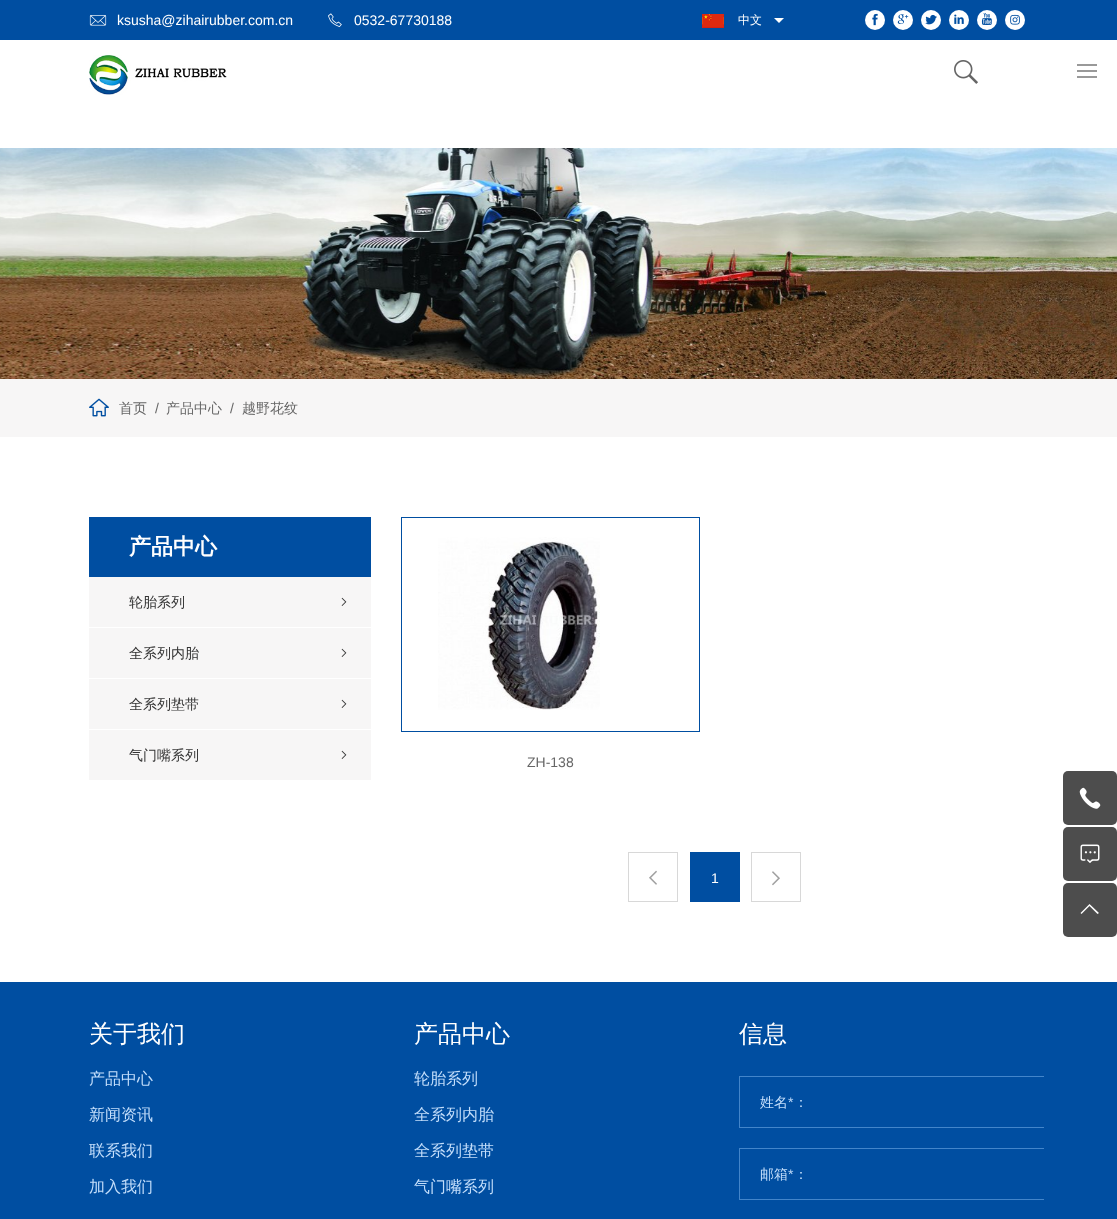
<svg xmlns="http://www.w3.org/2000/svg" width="1117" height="1219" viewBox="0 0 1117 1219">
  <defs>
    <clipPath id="clip1"><rect x="74" y="992" width="970" height="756"/></clipPath>
  </defs>
  <rect width="100%" height="100%" fill="rgb(255,255,255)"/>
  <rect x="0" y="0" width="1117" height="40" fill="rgb(0,78,161)"/>
  <image x="89" y="15" width="18" height="11" href="pic1.png"/>
  <text x="117" y="25" font-family="Liberation Sans" font-size="14" fill="rgb(255,255,255)">ksusha@zihairubber.com.cn</text>
  <image x="328" y="13" width="14" height="14" href="pic2.png"/>
  <text x="354" y="25" font-family="Liberation Sans" font-size="14" fill="rgb(255,255,255)">0532-67730188</text>
  <image x="702" y="14" width="22" height="14" href="pic3.png"/>
  <text x="738" y="24" font-family="WenQuanYi Zen Hei" font-size="12" font-weight="500" fill="rgb(255,255,255)">中文</text>
  <path d="M774 18H784L779 23Z" fill="rgb(255,255,255)"/>
  <circle cx="875" cy="20" r="10" fill="rgb(255,255,255)"/>
  <image x="872" y="13" width="6" height="13" href="pic4.png"/>
  <circle cx="903" cy="20" r="10" fill="rgb(255,255,255)"/>
  <image x="897" y="14" width="12" height="11" href="pic5.png"/>
  <circle cx="931" cy="20" r="10" fill="rgb(255,255,255)"/>
  <image x="925" y="14" width="12" height="11" href="pic6.png"/>
  <circle cx="959" cy="20" r="10" fill="rgb(255,255,255)"/>
  <image x="954" y="14" width="10" height="10" href="pic7.png"/>
  <circle cx="987" cy="20" r="10" fill="rgb(255,255,255)"/>
  <image x="981" y="13" width="11" height="12" href="pic8.png"/>
  <circle cx="1015" cy="20" r="10" fill="rgb(255,255,255)"/>
  <image x="1010" y="14" width="10" height="11" href="pic9.png"/>
  <image x="89" y="55" width="138" height="40" href="pic10.png"/>
  <image x="954" y="60" width="24" height="24" href="pic11.png"/>
  <rect x="1077" y="64" width="20" height="2" fill="rgb(153,153,153)"/>
  <rect x="1077" y="70" width="20" height="2" fill="rgb(153,153,153)"/>
  <rect x="1077" y="76" width="20" height="2" fill="rgb(153,153,153)"/>
  <image x="0" y="148" width="1117" height="231" href="pic12.png"/>
  <rect x="0" y="379" width="1117" height="58" fill="rgb(247,246,246)"/>
  <image x="89" y="398" width="20" height="19" href="pic13.png"/>
  <text x="119" y="413" font-family="WenQuanYi Zen Hei" font-size="14" font-weight="500" fill="rgb(102,102,102)">首页</text>
  <text x="155" y="413" font-family="Liberation Sans" font-size="14" fill="rgb(102,102,102)">/</text>
  <text x="166" y="413" font-family="WenQuanYi Zen Hei" font-size="14" font-weight="500" fill="rgb(102,102,102)">产品中心</text>
  <text x="230" y="413" font-family="Liberation Sans" font-size="14" fill="rgb(102,102,102)">/</text>
  <text x="242" y="413" font-family="WenQuanYi Zen Hei" font-size="14" font-weight="500" fill="rgb(102,102,102)">越野花纹</text>
  <rect x="89" y="577" width="282" height="203" fill="rgb(247,246,246)"/>
  <rect x="89" y="517" width="282" height="60" fill="rgb(0,78,161)"/>
  <text x="129" y="554" font-family="WenQuanYi Zen Hei" font-size="22" font-weight="bold" fill="rgb(255,255,255)">产品中心</text>
  <rect x="89" y="627" width="282" height="1" fill="rgb(255,255,255)"/>
  <text x="129" y="607" font-family="WenQuanYi Zen Hei" font-size="14" font-weight="500" fill="rgb(51,51,51)">轮胎系列</text>
  <image x="341" y="597" width="6" height="9" href="pic14.png"/>
  <rect x="89" y="678" width="282" height="1" fill="rgb(255,255,255)"/>
  <text x="129" y="658" font-family="WenQuanYi Zen Hei" font-size="14" font-weight="500" fill="rgb(51,51,51)">全系列内胎</text>
  <image x="341" y="648" width="6" height="9" href="pic14.png"/>
  <rect x="89" y="729" width="282" height="1" fill="rgb(255,255,255)"/>
  <text x="129" y="709" font-family="WenQuanYi Zen Hei" font-size="14" font-weight="500" fill="rgb(51,51,51)">全系列垫带</text>
  <image x="341" y="699" width="6" height="9" href="pic14.png"/>
  <text x="129" y="760" font-family="WenQuanYi Zen Hei" font-size="14" font-weight="500" fill="rgb(51,51,51)">气门嘴系列</text>
  <image x="341" y="750" width="6" height="9" href="pic14.png"/>
  <rect x="401.5" y="517.5" width="298" height="214" fill="none" stroke="rgb(0,78,161)"/>
  <image x="438" y="537" width="162" height="173" href="pic15.png"/>
  <text x="527" y="767" font-family="Liberation Sans" font-size="14" fill="rgb(102,102,102)">ZH-138</text>
  <rect x="628.5" y="852.5" width="49" height="49" fill="none" stroke="rgb(216,216,216)"/>
  <image x="649" y="870" width="8" height="15" href="pic16.png"/>
  <rect x="690" y="852" width="50" height="50" fill="rgb(0,78,161)"/>
  <text x="711" y="883" font-family="Liberation Sans" font-size="14" fill="rgb(255,255,255)">1</text>
  <rect x="751.5" y="852.5" width="49" height="49" fill="none" stroke="rgb(216,216,216)"/>
  <image x="772" y="871" width="8" height="15" href="pic17.png"/>
  <rect x="1063" y="771" width="54" height="54" rx="5" fill="rgb(77,77,77)"/>
  <image x="1079" y="787" width="22" height="22" href="pic18.png"/>
  <rect x="1063" y="827" width="54" height="54" rx="5" fill="rgb(77,77,77)"/>
  <image x="1080" y="844" width="20" height="19" href="pic19.png"/>
  <rect x="1063" y="883" width="54" height="54" rx="5" fill="rgb(77,77,77)"/>
  <path d="M1089.5 904L1080.5 913L1081.5 914L1089.5 906L1097.5 914L1099 913Z" fill="rgb(255,255,255)"/>
  <rect x="0" y="982" width="1117" height="237" fill="rgb(0,78,161)"/>
  <text x="89" y="1042" font-family="WenQuanYi Zen Hei" font-size="24" font-weight="500" fill="rgb(255,255,255)">关于我们</text>
  <g font-family="WenQuanYi Zen Hei" font-size="16" font-weight="500" fill="rgb(195,222,251)">
    <text x="89" y="1084">产品中心</text>
    <text x="89" y="1120">新闻资讯</text>
    <text x="89" y="1156">联系我们</text>
    <text x="89" y="1192">加入我们</text>
  </g>
  <text x="414" y="1042" font-family="WenQuanYi Zen Hei" font-size="24" font-weight="500" fill="rgb(255,255,255)">产品中心</text>
  <g font-family="WenQuanYi Zen Hei" font-size="16" font-weight="500" fill="rgb(195,222,251)">
    <text x="414" y="1084">轮胎系列</text>
    <text x="414" y="1120">全系列内胎</text>
    <text x="414" y="1156">全系列垫带</text>
    <text x="414" y="1192">气门嘴系列</text>
  </g>
  <text x="739" y="1042" font-family="WenQuanYi Zen Hei" font-size="24" font-weight="500" fill="rgb(255,255,255)">信息</text>
  <g clip-path="url(#clip1)">
    <rect x="739.5" y="1076.5" width="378" height="51" fill="none" stroke="rgb(67,133,202)"/>
  </g>
  <text x="760" y="1107" font-family="WenQuanYi Zen Hei" font-size="14" font-weight="500" fill="rgb(195,222,251)">姓名</text>
  <text x="788" y="1107" font-family="Liberation Sans" font-size="14" fill="rgb(195,222,251)">*</text>
  <text x="794" y="1107" font-family="WenQuanYi Zen Hei" font-size="14" font-weight="500" fill="rgb(195,222,251)">：</text>
  <g clip-path="url(#clip1)">
    <rect x="739.5" y="1148.5" width="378" height="51" fill="none" stroke="rgb(67,133,202)"/>
  </g>
  <text x="760" y="1179" font-family="WenQuanYi Zen Hei" font-size="14" font-weight="500" fill="rgb(195,222,251)">邮箱</text>
  <text x="788" y="1179" font-family="Liberation Sans" font-size="14" fill="rgb(195,222,251)">*</text>
  <text x="794" y="1179" font-family="WenQuanYi Zen Hei" font-size="14" font-weight="500" fill="rgb(195,222,251)">：</text>
</svg>
